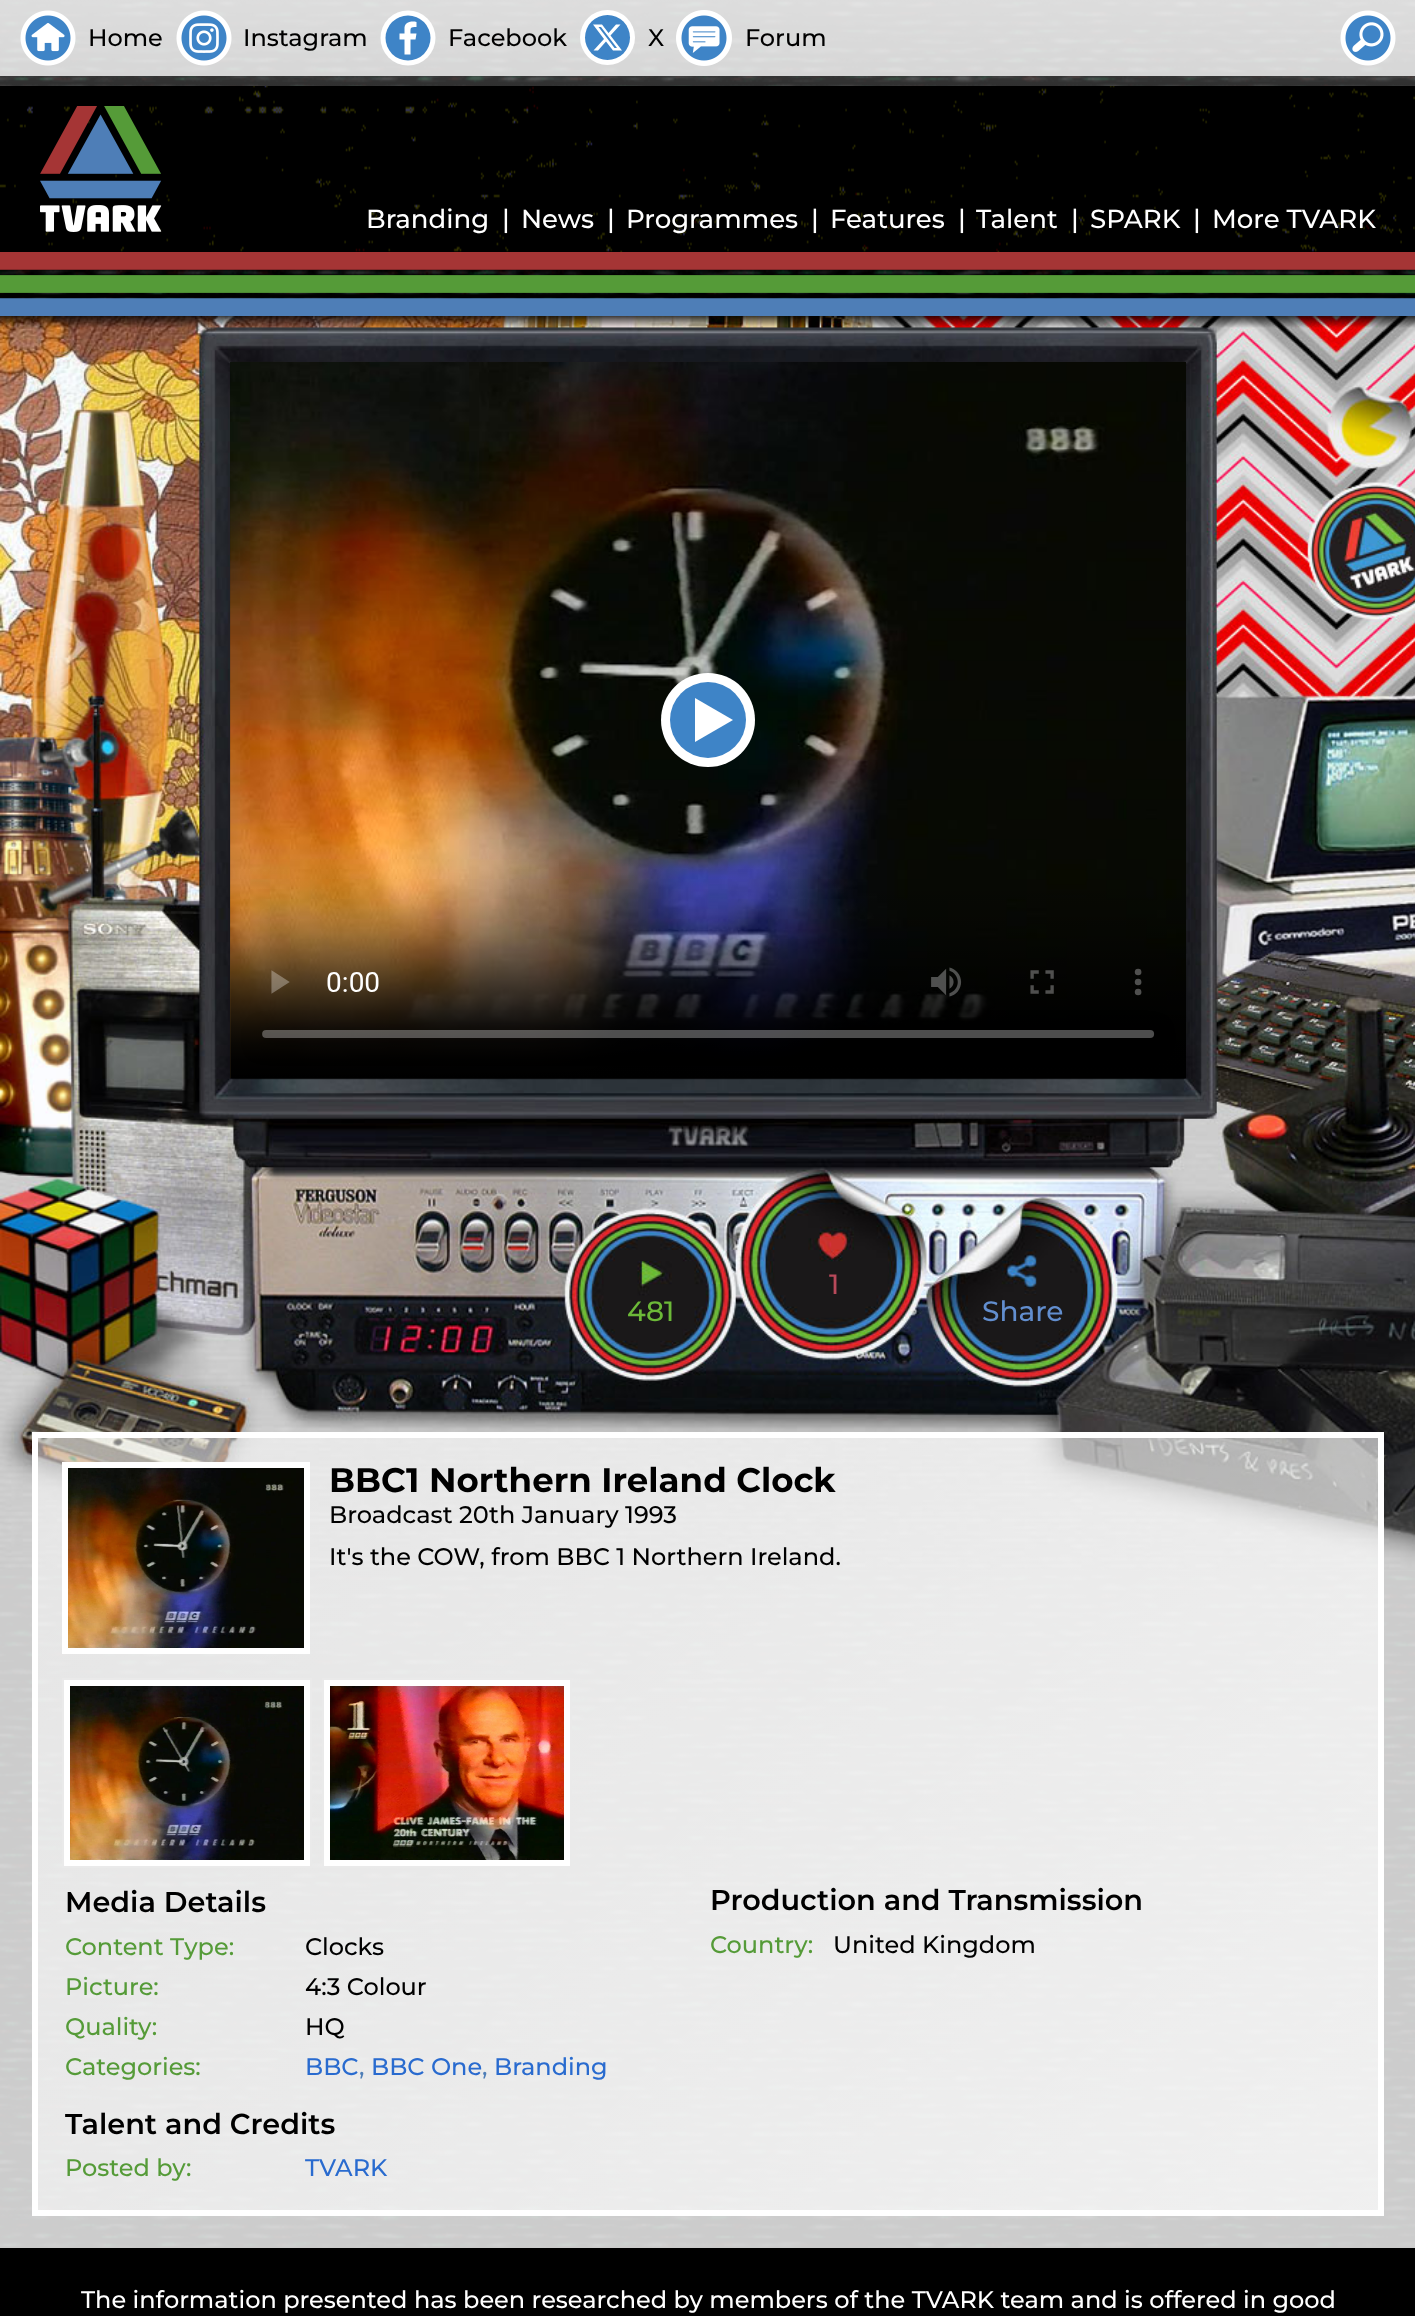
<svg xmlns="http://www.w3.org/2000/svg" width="1415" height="2316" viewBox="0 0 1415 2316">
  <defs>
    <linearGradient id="g1" gradientUnits="userSpaceOnUse" x1="180" y1="1296" x2="1236" y2="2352"><stop offset="0" stop-color="rgb(255,255,255)" stop-opacity="0.5"/><stop offset="1" stop-color="rgb(255,255,255)" stop-opacity="0.7"/></linearGradient>
  </defs>
  <rect width="100%" height="100%" fill="rgb(255,255,255)"/>
  <image x="0" y="0" width="1415" height="2248" href="pic1.png"/>
  <image x="0" y="0" width="1415" height="86" href="pic2.png"/>
  <image x="0" y="252" width="1415" height="64" href="pic3.png"/>
  <rect x="0" y="0" width="1415" height="76" fill="rgba(255,255,255,0.8)"/>
  <image x="20" y="10" width="56" height="56" href="pic4.png"/>
  <text x="88" y="46" font-family="Montserrat" font-size="24" font-weight="500" fill="rgb(0,0,0)">Home</text>
  <image x="176" y="10" width="56" height="56" href="pic5.png"/>
  <text x="243" y="46" font-family="Montserrat" font-size="24" font-weight="500" fill="rgb(0,0,0)">Instagram</text>
  <circle cx="408" cy="38" r="27.5" fill="rgb(255,255,255)"/>
  <circle cx="408" cy="38" r="22.5" fill="rgb(62,132,199)"/>
  <path d="M410.5 54.5V39.5H415.5L416.5 33.5H410.5C410.5 27.5 410 27 416.5 27V22C412 21 405.5 21.5 404.5 27.5V33.5H399.5V39.5H404.5V54.5Z" fill="rgb(255,255,255)"/>
  <text x="448" y="46" font-family="Montserrat" font-size="24" font-weight="500" fill="rgb(0,0,0)">Facebook</text>
  <circle cx="607.5" cy="37.5" r="27.5" fill="rgb(255,255,255)"/>
  <circle cx="607.5" cy="37.5" r="22.5" fill="rgb(62,132,199)"/>
  <path d="M616 24.5H620.5L610.5 35.5L622 50.5H613L606 41.5L598 50.5H593.5L604 39L593 24.5H602L608.5 33ZM614.5 48H617L601 27H598.5Z" fill="rgb(255,255,255)"/>
  <text x="648" y="46" font-family="Montserrat" font-size="24" font-weight="500" fill="rgb(0,0,0)">X</text>
  <image x="676" y="10" width="56" height="56" href="pic6.png"/>
  <text x="745" y="46" font-family="Montserrat" font-size="24" font-weight="500" fill="rgb(0,0,0)">Forum</text>
  <image x="1340" y="10" width="56" height="56" href="pic7.png"/>
  <image x="0" y="86" width="1415" height="166" href="pic8.png"/>
  <image x="40" y="106" width="122" height="126" href="pic9.png"/>
  <g font-family="Montserrat" font-size="26" font-weight="500" fill="rgb(255,255,255)">
    <text x="366" y="228">Branding</text>
    <text x="502" y="228">|</text>
    <text x="521" y="228">News</text>
    <text x="607" y="228">|</text>
    <text x="626" y="228">Programmes</text>
    <text x="811" y="228">|</text>
    <text x="830" y="228">Features</text>
    <text x="958" y="228">|</text>
    <text x="976" y="228">Talent</text>
    <text x="1071" y="228">|</text>
    <text x="1090" y="228">SPARK</text>
    <text x="1193" y="228">|</text>
    <text x="1212" y="228">More TVARK</text>
  </g>
  <rect x="0" y="1570" width="1415" height="678" fill="rgba(255,255,255,0.8)"/>
  <image x="0" y="316" width="1415" height="1254" href="pic10.png"/>
  <text x="829" y="1294" font-family="Montserrat" font-size="28" font-weight="500" fill="rgb(184,73,90)">1</text>
  <text x="627" y="1321" font-family="Montserrat" font-size="28" font-weight="500" fill="rgb(108,185,56)">481</text>
  <text x="982" y="1321" font-family="Montserrat" font-size="28" font-weight="500" fill="rgb(98,142,207)">Share</text>
  <rect x="38" y="1438" width="1340" height="772" fill="url(#g1)"/>
  <rect x="35" y="1435" width="1346" height="778" fill="none" stroke="rgb(255,255,255)" stroke-width="6"/>
  <image x="230" y="362" width="956" height="716" href="pic11.png"/>
  <circle cx="708" cy="720" r="47" fill="rgb(255,255,255)"/>
  <circle cx="708" cy="720" r="38" fill="rgb(62,132,199)"/>
  <path d="M695 742L733 720L695 698Z" fill="rgb(255,255,255)"/>
  <image x="68" y="1468" width="236" height="180" href="pic12.png"/>
  <rect x="65" y="1465" width="242" height="186" fill="none" stroke="rgb(255,255,255)" stroke-width="6"/>
  <text x="329" y="1492" font-family="Montserrat" font-size="34" font-weight="bold" fill="rgb(0,0,0)">BBC1 Northern Ireland Clock</text>
  <g font-family="Montserrat" font-size="24" font-weight="500" fill="rgb(0,0,0)">
    <text>
      <tspan x="329" y="1523">Broadcast 20th January 1993</tspan>
      <tspan x="329" y="1565">It's the COW, from BBC 1 Northern Ireland.</tspan>
    </text>
  </g>
  <rect x="63" y="1679" width="248" height="188" fill="rgb(255,255,255)" stroke="rgb(234,234,234)" stroke-width="2"/>
  <image x="70" y="1686" width="234" height="174" href="pic13.png"/>
  <rect x="323" y="1679" width="248" height="188" fill="rgb(255,255,255)" stroke="rgb(234,234,234)" stroke-width="2"/>
  <image x="330" y="1686" width="234" height="174" href="pic14.png"/>
  <text x="65" y="1912" font-family="Montserrat" font-size="28.75" font-weight="600" fill="rgb(0,0,0)">Media Details</text>
  <text x="65" y="1955" font-family="Montserrat" font-size="24" font-weight="500" fill="rgb(85,155,56)">Content Type:</text>
  <text x="305" y="1955" font-family="Montserrat" font-size="24" font-weight="500" fill="rgb(0,0,0)">Clocks</text>
  <text x="65" y="1995" font-family="Montserrat" font-size="24" font-weight="500" fill="rgb(85,155,56)">Picture:</text>
  <text x="305" y="1995" font-family="Montserrat" font-size="24" font-weight="500" fill="rgb(0,0,0)">4:3 Colour</text>
  <text x="65" y="2035" font-family="Montserrat" font-size="24" font-weight="500" fill="rgb(85,155,56)">Quality:</text>
  <text x="305" y="2035" font-family="Montserrat" font-size="24" font-weight="500" fill="rgb(0,0,0)">HQ</text>
  <text x="65" y="2075" font-family="Montserrat" font-size="24" font-weight="500" fill="rgb(85,155,56)">Categories:</text>
  <text x="305" y="2075" font-family="Montserrat" font-size="24" font-weight="500" fill="rgb(41,107,207)">BBC</text>
  <text x="359" y="2075" font-family="Montserrat" font-size="24" font-weight="500" fill="rgb(78,126,183)">,</text>
  <text x="371" y="2075" font-family="Montserrat" font-size="24" font-weight="500" fill="rgb(41,107,207)">BBC One</text>
  <text x="482" y="2075" font-family="Montserrat" font-size="24" font-weight="500" fill="rgb(78,126,183)">,</text>
  <text x="494" y="2075" font-family="Montserrat" font-size="24" font-weight="500" fill="rgb(41,107,207)">Branding</text>
  <text x="710" y="1910" font-family="Montserrat" font-size="28.75" font-weight="600" fill="rgb(0,0,0)">Production and Transmission</text>
  <text x="710" y="1953" font-family="Montserrat" font-size="24" font-weight="500" fill="rgb(85,155,56)">Country:</text>
  <text x="833" y="1953" font-family="Montserrat" font-size="24" font-weight="500" fill="rgb(0,0,0)">United Kingdom</text>
  <text x="65" y="2134" font-family="Montserrat" font-size="28.75" font-weight="600" fill="rgb(0,0,0)">Talent and Credits</text>
  <text x="65" y="2176" font-family="Montserrat" font-size="24" font-weight="500" fill="rgb(85,155,56)">Posted by:</text>
  <text x="305" y="2176" font-family="Montserrat" font-size="24" font-weight="500" fill="rgb(41,107,207)">TVARK</text>
  <rect x="0" y="2248" width="1415" height="68" fill="rgb(0,0,0)"/>
  <text x="81" y="2308" font-family="Montserrat" font-size="24" font-weight="500" fill="rgb(255,255,255)">The information presented has been researched by members of the TVARK team and is offered in good</text>
</svg>
